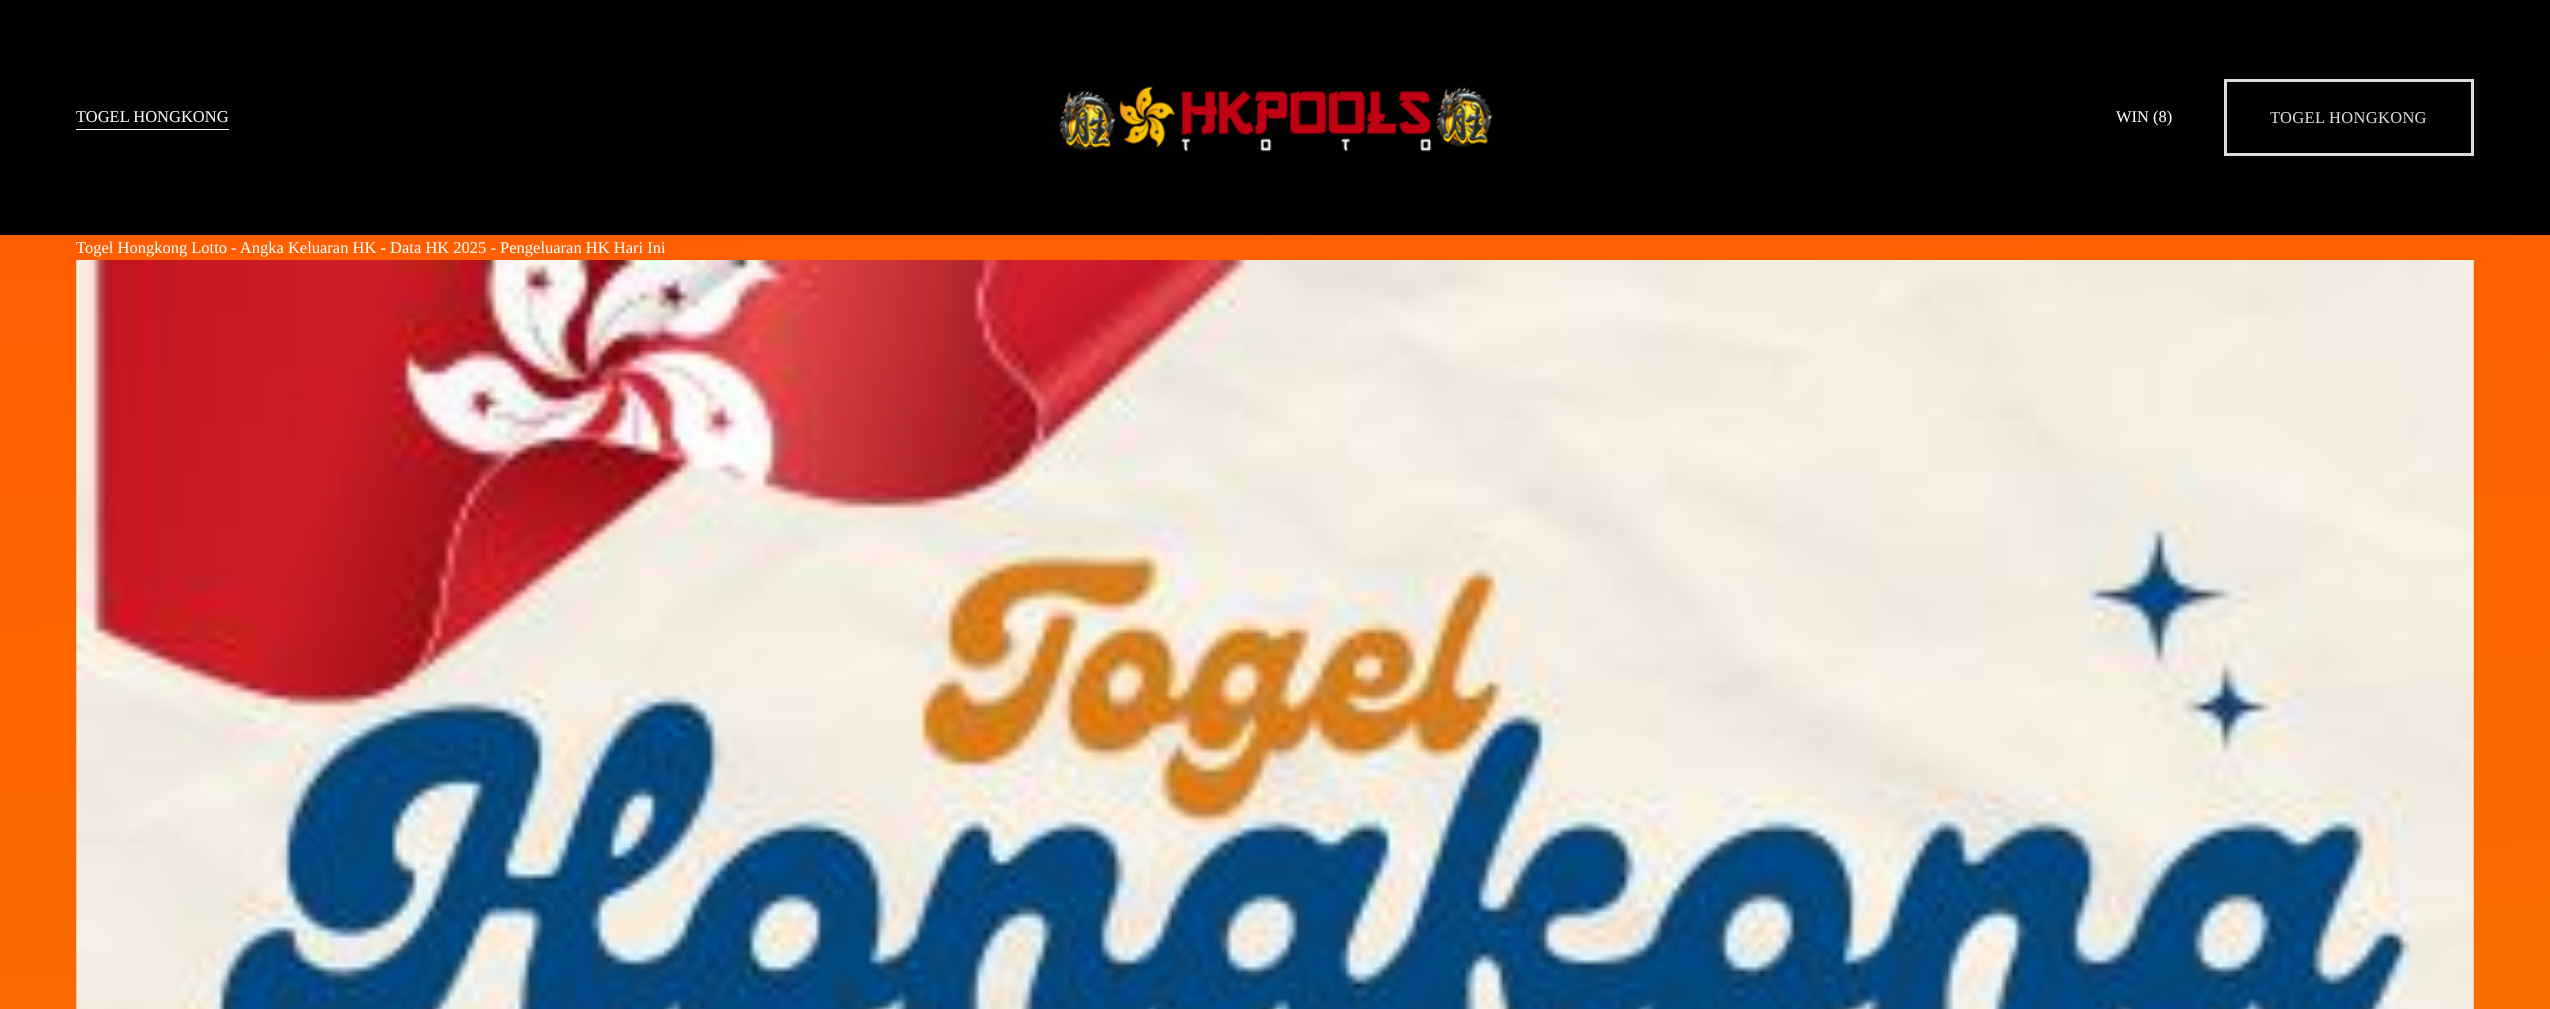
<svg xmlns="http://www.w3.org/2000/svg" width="2550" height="1009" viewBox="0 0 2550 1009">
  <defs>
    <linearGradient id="g1" gradientUnits="userSpaceOnUse" x1="1060" y1="179" x2="1490" y2="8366"><stop offset="0" stop-color="rgb(255,94,0)"/><stop offset="1" stop-color="rgb(202,224,0)"/></linearGradient>
  </defs>
  <rect width="100%" height="100%" fill="rgb(0,0,0)"/>
  <rect x="76" y="129" width="153" height="1" fill="rgb(250,250,250)"/>
  <text x="76" y="122" font-family="Liberation Serif" font-size="16.5" fill="rgb(250,250,250)">TOGEL HONGKONG</text>
  <image x="1058" y="86" width="435" height="66" href="pic1.png"/>
  <text x="2116" y="122" font-family="Liberation Serif" font-size="16.5" fill="rgb(250,250,250)">WIN (8)</text>
  <rect x="2225.5" y="80.5" width="247" height="74" fill="none" stroke="rgb(220,220,220)" stroke-width="3"/>
  <text x="2270" y="123" font-family="Liberation Serif" font-size="16.5" letter-spacing="0.3" fill="rgb(220,220,220)">TOGEL HONGKONG</text>
  <rect x="0" y="235" width="2550" height="774" fill="url(#g1)"/>
  <text x="76" y="253" font-family="Liberation Serif" font-size="16.5" fill="rgb(250,250,250)">Togel Hongkong Lotto - Angka Keluaran HK - Data HK 2025 - Pengeluaran HK Hari Ini</text>
  <image x="76" y="260" width="2398" height="749" href="pic2.png"/>
</svg>
